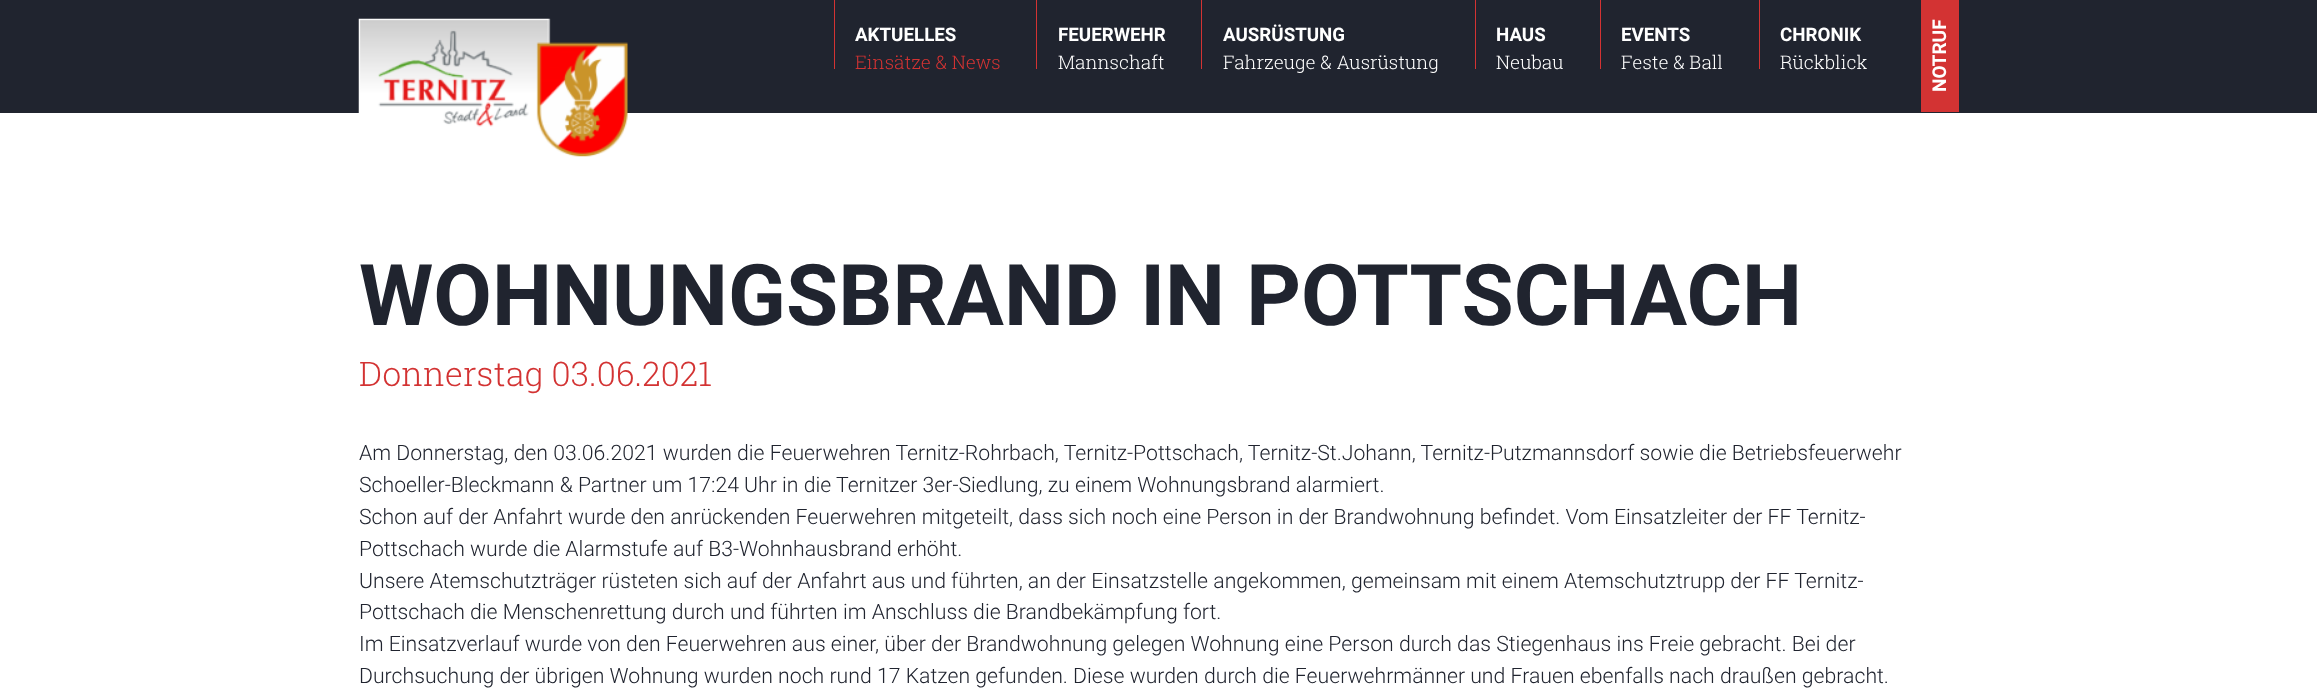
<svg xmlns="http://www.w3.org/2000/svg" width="2317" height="699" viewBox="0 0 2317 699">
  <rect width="100%" height="100%" fill="rgb(255,255,255)"/>
  <rect x="0" y="0" width="2317" height="113" fill="rgb(32,36,47)"/>
  <image x="358" y="18" width="270" height="139" href="pic1.png"/>
  <rect x="834" y="0" width="1" height="69" fill="rgb(211,51,51)"/>
  <text x="855" y="41" font-family="Roboto" font-size="18.75" font-weight="bold" fill="rgb(255,255,255)">AKTUELLES</text>
  <text x="855" y="69" font-family="Roboto Slab" font-size="18.75" font-weight="300" fill="rgb(211,51,51)">Einsätze &amp; News</text>
  <rect x="1036" y="0" width="1" height="69" fill="rgb(211,51,51)"/>
  <text x="1058" y="41" font-family="Roboto" font-size="18.75" font-weight="bold" fill="rgb(255,255,255)">FEUERWEHR</text>
  <text x="1058" y="69" font-family="Roboto Slab" font-size="18.75" font-weight="300" fill="rgb(255,255,255)">Mannschaft</text>
  <rect x="1201" y="0" width="1" height="69" fill="rgb(211,51,51)"/>
  <text x="1223" y="41" font-family="Roboto" font-size="18.75" font-weight="bold" fill="rgb(255,255,255)">AUSRÜSTUNG</text>
  <text x="1223" y="69" font-family="Roboto Slab" font-size="18.75" font-weight="300" fill="rgb(255,255,255)">Fahrzeuge &amp; Ausrüstung</text>
  <rect x="1475" y="0" width="1" height="69" fill="rgb(211,51,51)"/>
  <text x="1496" y="41" font-family="Roboto" font-size="18.75" font-weight="bold" fill="rgb(255,255,255)">HAUS</text>
  <text x="1496" y="69" font-family="Roboto Slab" font-size="18.75" font-weight="300" fill="rgb(255,255,255)">Neubau</text>
  <rect x="1600" y="0" width="1" height="69" fill="rgb(211,51,51)"/>
  <text x="1621" y="41" font-family="Roboto" font-size="18.75" font-weight="bold" fill="rgb(255,255,255)">EVENTS</text>
  <text x="1621" y="69" font-family="Roboto Slab" font-size="18.75" font-weight="300" fill="rgb(255,255,255)">Feste &amp; Ball</text>
  <rect x="1759" y="0" width="1" height="69" fill="rgb(211,51,51)"/>
  <text x="1780" y="41" font-family="Roboto" font-size="18.75" font-weight="bold" fill="rgb(255,255,255)">CHRONIK</text>
  <text x="1780" y="69" font-family="Roboto Slab" font-size="18.75" font-weight="300" fill="rgb(255,255,255)">Rückblick</text>
  <rect x="1921" y="0" width="38" height="112" fill="rgb(211,51,51)"/>
  <text x="1946" y="92" transform="rotate(-90 1946 92)" font-family="Roboto" font-size="19" font-weight="bold" fill="rgb(255,255,255)">NOTRUF</text>
  <text x="359" y="325" font-family="Roboto" font-size="85" font-weight="bold" fill="rgb(32,36,47)">WOHNUNGSBRAND IN POTTSCHACH</text>
  <text x="359" y="386" font-family="Roboto Slab" font-size="33.9" font-weight="300" fill="rgb(211,51,51)">Donnerstag 03.06.2021</text>
  <g font-family="Roboto" font-size="21.25" font-weight="300" fill="rgb(32,36,47)">
    <text>
      <tspan x="359" y="460">Am Donnerstag, den 03.06.2021 wurden die Feuerwehren Ternitz-Rohrbach, Ternitz-Pottschach, Ternitz-St.Johann, Ternitz-Putzmannsdorf sowie die Betriebsfeuerwehr</tspan>
      <tspan x="359" y="492">Schoeller-Bleckmann &amp; Partner um 17:24 Uhr in die Ternitzer 3er-Siedlung, zu einem Wohnungsbrand alarmiert.</tspan>
      <tspan x="359" y="524">Schon auf der Anfahrt wurde den anrückenden Feuerwehren mitgeteilt, dass sich noch eine Person in der Brandwohnung befindet. Vom Einsatzleiter der FF Ternitz-</tspan>
      <tspan x="359" y="556">Pottschach wurde die Alarmstufe auf B3-Wohnhausbrand erhöht.</tspan>
      <tspan x="359" y="588">Unsere Atemschutzträger rüsteten sich auf der Anfahrt aus und führten, an der Einsatzstelle angekommen, gemeinsam mit einem Atemschutztrupp der FF Ternitz-</tspan>
      <tspan x="359" y="619">Pottschach die Menschenrettung durch und führten im Anschluss die Brandbekämpfung fort.</tspan>
      <tspan x="359" y="651">Im Einsatzverlauf wurde von den Feuerwehren aus einer, über der Brandwohnung gelegen Wohnung eine Person durch das Stiegenhaus ins Freie gebracht. Bei der</tspan>
      <tspan x="359" y="683">Durchsuchung der übrigen Wohnung wurden noch rund 17 Katzen gefunden. Diese wurden durch die Feuerwehrmänner und Frauen ebenfalls nach draußen gebracht.</tspan>
    </text>
  </g>
</svg>
